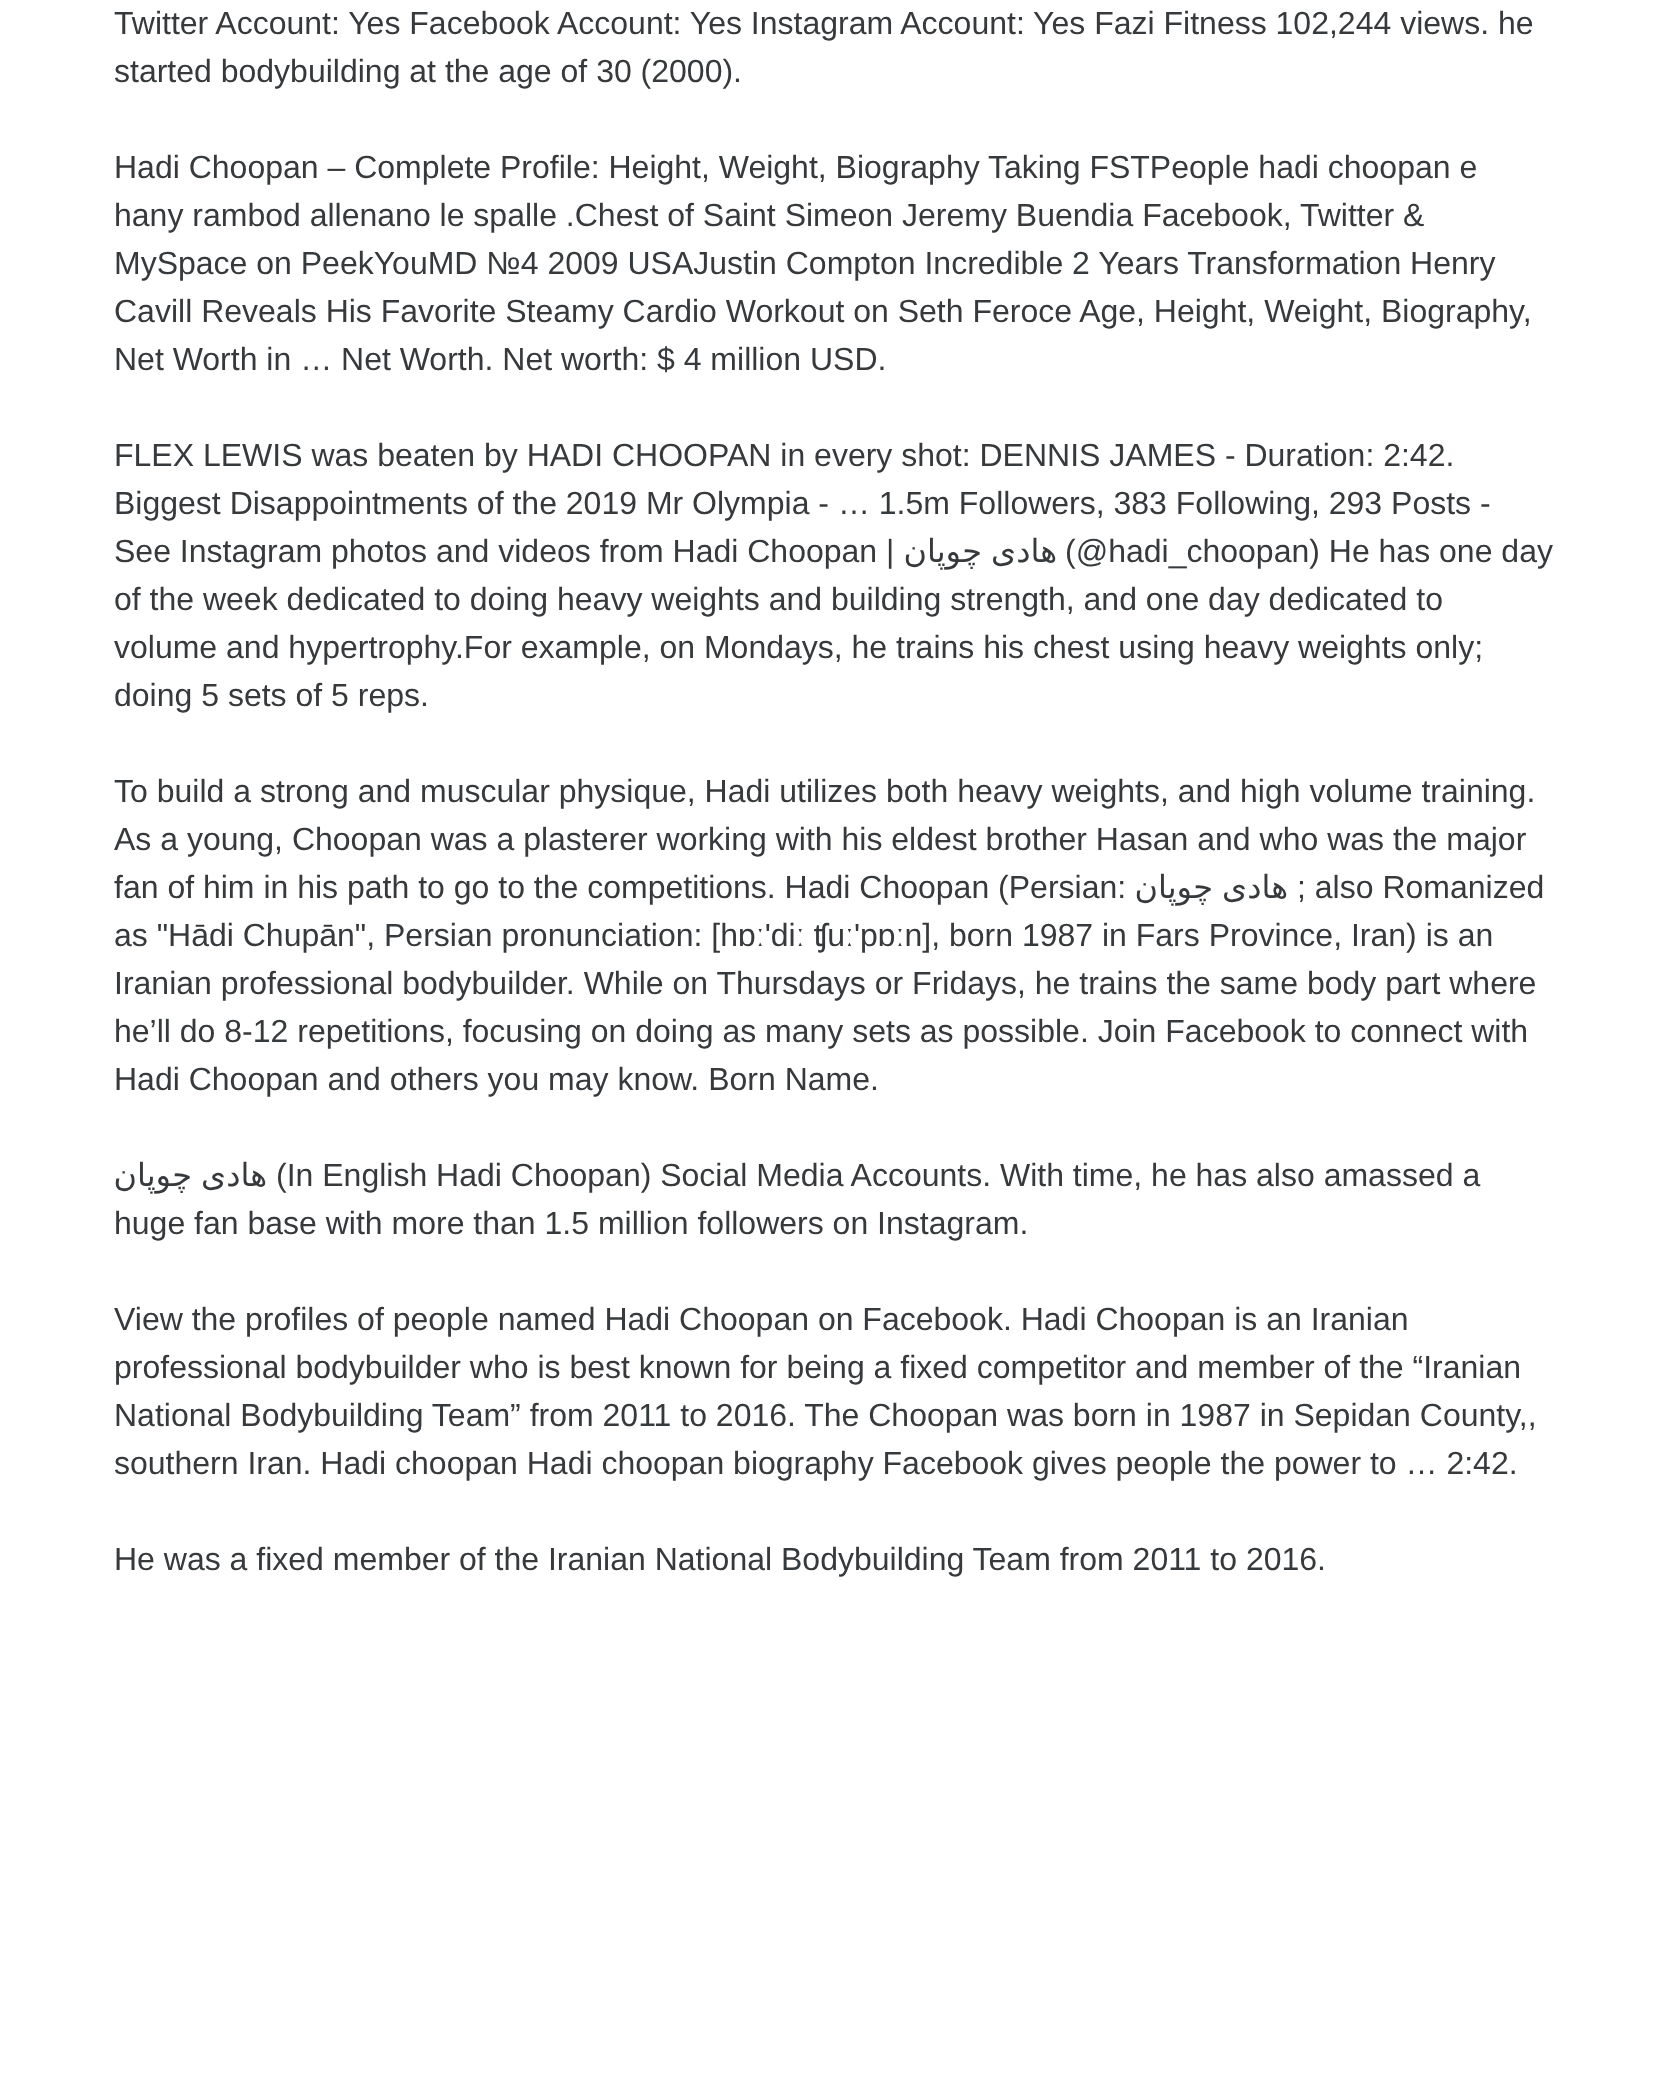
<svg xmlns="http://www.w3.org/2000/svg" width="1668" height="2083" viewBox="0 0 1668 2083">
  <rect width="100%" height="100%" fill="rgb(255,255,255)"/>
  <g font-family="Liberation Sans" font-size="32" fill="rgb(55,58,60)">
    <text>
      <tspan x="114" y="34">Twitter Account: Yes Facebook Account: Yes Instagram Account: Yes Fazi Fitness 102,244 views. he</tspan>
      <tspan x="114" y="82">started bodybuilding at the age of 30 (2000).</tspan>
    </text>
    <text>
      <tspan x="114" y="178">Hadi Choopan – Complete Profile: Height, Weight, Biography Taking FSTPeople hadi choopan e</tspan>
      <tspan x="114" y="226">hany rambod allenano le spalle .Chest of Saint Simeon Jeremy Buendia Facebook, Twitter &amp;</tspan>
      <tspan x="114" y="274">MySpace on PeekYouMD №4 2009 USAJustin Compton Incredible 2 Years Transformation Henry</tspan>
      <tspan x="114" y="322">Cavill Reveals His Favorite Steamy Cardio Workout on Seth Feroce Age, Height, Weight, Biography,</tspan>
      <tspan x="114" y="370">Net Worth in … Net Worth. Net worth: $ 4 million USD.</tspan>
    </text>
    <text>
      <tspan x="114" y="466">FLEX LEWIS was beaten by HADI CHOOPAN in every shot: DENNIS JAMES - Duration: 2:42.</tspan>
      <tspan x="114" y="514">Biggest Disappointments of the 2019 Mr Olympia - … 1.5m Followers, 383 Following, 293 Posts -</tspan>
      <tspan x="114" y="562">See Instagram photos and videos from Hadi Choopan |</tspan>
    </text>
  </g>
  <text x="1057" y="562" word-spacing="-1" font-family="DejaVu Sans" font-size="32" direction="rtl" fill="rgb(55,58,60)">هادی چوپان</text>
  <g font-family="Liberation Sans" font-size="32" fill="rgb(55,58,60)">
    <text x="1065" y="562">(@hadi_choopan) He has one day</text>
    <text>
      <tspan x="114" y="610">of the week dedicated to doing heavy weights and building strength, and one day dedicated to</tspan>
      <tspan x="114" y="658">volume and hypertrophy.For example, on Mondays, he trains his chest using heavy weights only;</tspan>
      <tspan x="114" y="706">doing 5 sets of 5 reps.</tspan>
    </text>
    <text>
      <tspan x="114" y="802">To build a strong and muscular physique, Hadi utilizes both heavy weights, and high volume training.</tspan>
      <tspan x="114" y="850">As a young, Choopan was a plasterer working with his eldest brother Hasan and who was the major</tspan>
      <tspan x="114" y="898">fan of him in his path to go to the competitions. Hadi Choopan (Persian:</tspan>
    </text>
  </g>
  <text x="1288" y="898" word-spacing="-1" font-family="DejaVu Sans" font-size="32" direction="rtl" fill="rgb(55,58,60)">هادی چوپان</text>
  <g font-family="Liberation Sans" font-size="32" fill="rgb(55,58,60)">
    <text x="1297" y="898">; also Romanized</text>
    <text>
      <tspan x="114" y="946">as "Hādi Chupān", Persian pronunciation: [hɒː'diː ʧuː'pɒːn], born 1987 in Fars Province, Iran) is an</tspan>
      <tspan x="114" y="994">Iranian professional bodybuilder. While on Thursdays or Fridays, he trains the same body part where</tspan>
      <tspan x="114" y="1042">he’ll do 8-12 repetitions, focusing on doing as many sets as possible. Join Facebook to connect with</tspan>
      <tspan x="114" y="1090">Hadi Choopan and others you may know. Born Name.</tspan>
    </text>
  </g>
  <text x="267" y="1186" word-spacing="-1" font-family="DejaVu Sans" font-size="32" direction="rtl" fill="rgb(55,58,60)">هادی چوپان</text>
  <g font-family="Liberation Sans" font-size="32" fill="rgb(55,58,60)">
    <text x="276" y="1186">(In English Hadi Choopan) Social Media Accounts. With time, he has also amassed a</text>
    <text x="114" y="1234">huge fan base with more than 1.5 million followers on Instagram.</text>
    <text>
      <tspan x="114" y="1330">View the profiles of people named Hadi Choopan on Facebook. Hadi Choopan is an Iranian</tspan>
      <tspan x="114" y="1378">professional bodybuilder who is best known for being a fixed competitor and member of the “Iranian</tspan>
      <tspan x="114" y="1426">National Bodybuilding Team” from 2011 to 2016. The Choopan was born in 1987 in Sepidan County,,</tspan>
      <tspan x="114" y="1474">southern Iran. Hadi choopan Hadi choopan biography Facebook gives people the power to … 2:42.</tspan>
    </text>
    <text x="114" y="1570">He was a fixed member of the Iranian National Bodybuilding Team from 2011 to 2016.</text>
  </g>
</svg>
